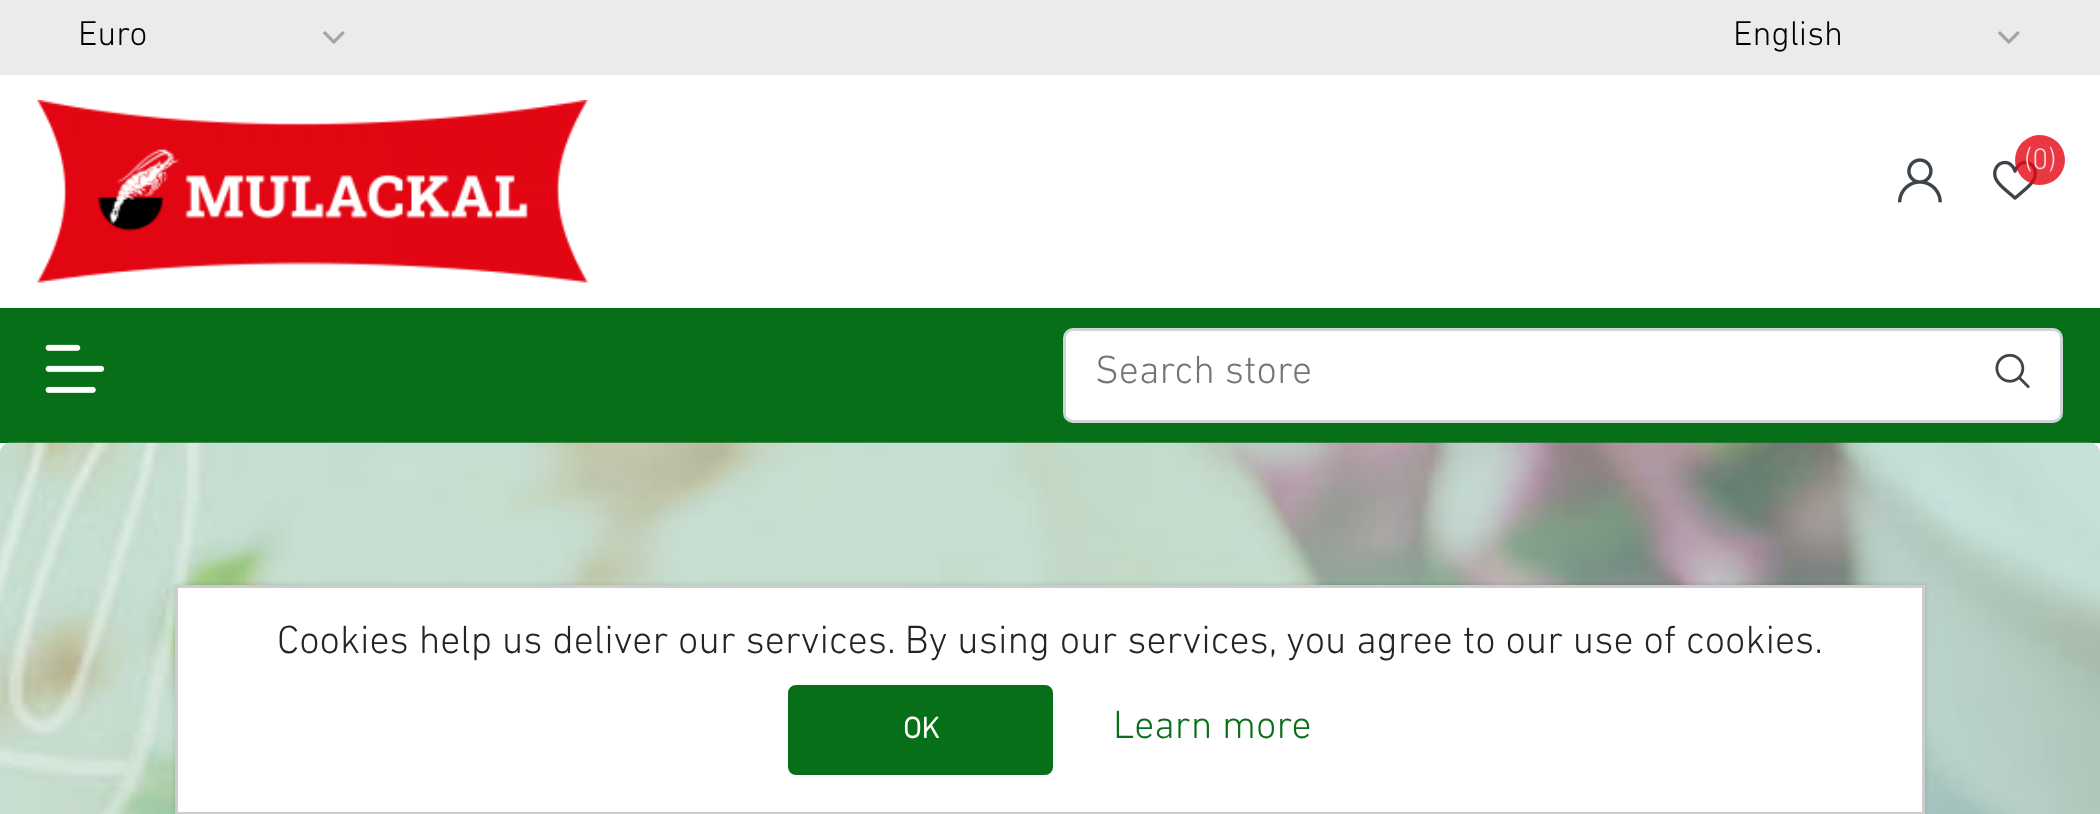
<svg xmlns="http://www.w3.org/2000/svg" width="2100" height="814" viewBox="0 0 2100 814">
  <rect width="100%" height="100%" fill="rgb(255,255,255)"/>
  <rect x="0" y="0" width="2100" height="75" fill="rgb(235,235,235)"/>
  <image x="323" y="31" width="22" height="13" href="pic1.png"/>
  <text x="78" y="45" font-family="DIN Next" font-size="35" font-weight="300" fill="rgb(0,0,0)">Euro</text>
  <image x="1998" y="31" width="22" height="13" href="pic1.png"/>
  <text x="1733" y="45" font-family="DIN Next" font-size="35" font-weight="300" fill="rgb(0,0,0)">English</text>
  <image x="37" y="100" width="551" height="183" href="pic2.png"/>
  <image x="1897" y="158" width="45" height="45" href="pic3.png"/>
  <image x="1993" y="160" width="44" height="40" href="pic4.png"/>
  <circle cx="2040" cy="160" r="25" fill="rgba(227,6,19,0.8)"/>
  <text x="2024" y="169" font-family="DIN Next" font-size="30" font-weight="300" fill="rgb(250,215,217)">(0)</text>
  <rect x="0" y="308" width="2100" height="135" fill="rgb(7,111,24)"/>
  <image x="45" y="344" width="60" height="49" href="pic5.png"/>
  <rect x="1064.5" y="329.5" width="997" height="92" rx="8.5" fill="rgb(255,255,255)" stroke="rgb(206,212,218)" stroke-width="3"/>
  <text x="1095" y="383" font-family="DIN Next" font-size="40" font-weight="300" fill="rgb(117,117,117)">Search store</text>
  <image x="1995" y="353" width="35" height="35" href="pic6.png"/>
  <image x="0" y="442" width="2100" height="372" href="pic7.png"/>
  <rect x="175" y="585" width="1750" height="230" fill="rgba(0,0,0,0.15)" filter="blur(2.5px)"/>
  <rect x="176.5" y="586.5" width="1747" height="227" fill="rgb(255,255,255)" stroke="rgb(204,204,204)" stroke-width="3"/>
  <text x="277" y="653" font-family="DIN Next" font-size="40" font-weight="300" fill="rgb(33,37,41)">Cookies help us deliver our services. By using our services, you agree to our use of cookies.</text>
  <rect x="789.5" y="686.5" width="262" height="87" rx="6.5" fill="rgb(7,111,24)" stroke="rgb(7,111,24)" stroke-width="3"/>
  <text x="903" y="738" font-family="DIN Next" font-size="30" font-weight="bold" fill="rgb(255,255,253)">OK</text>
  <text x="1113" y="738" font-family="DIN Next" font-size="40" font-weight="300" fill="rgb(7,111,24)">Learn more</text>
</svg>
